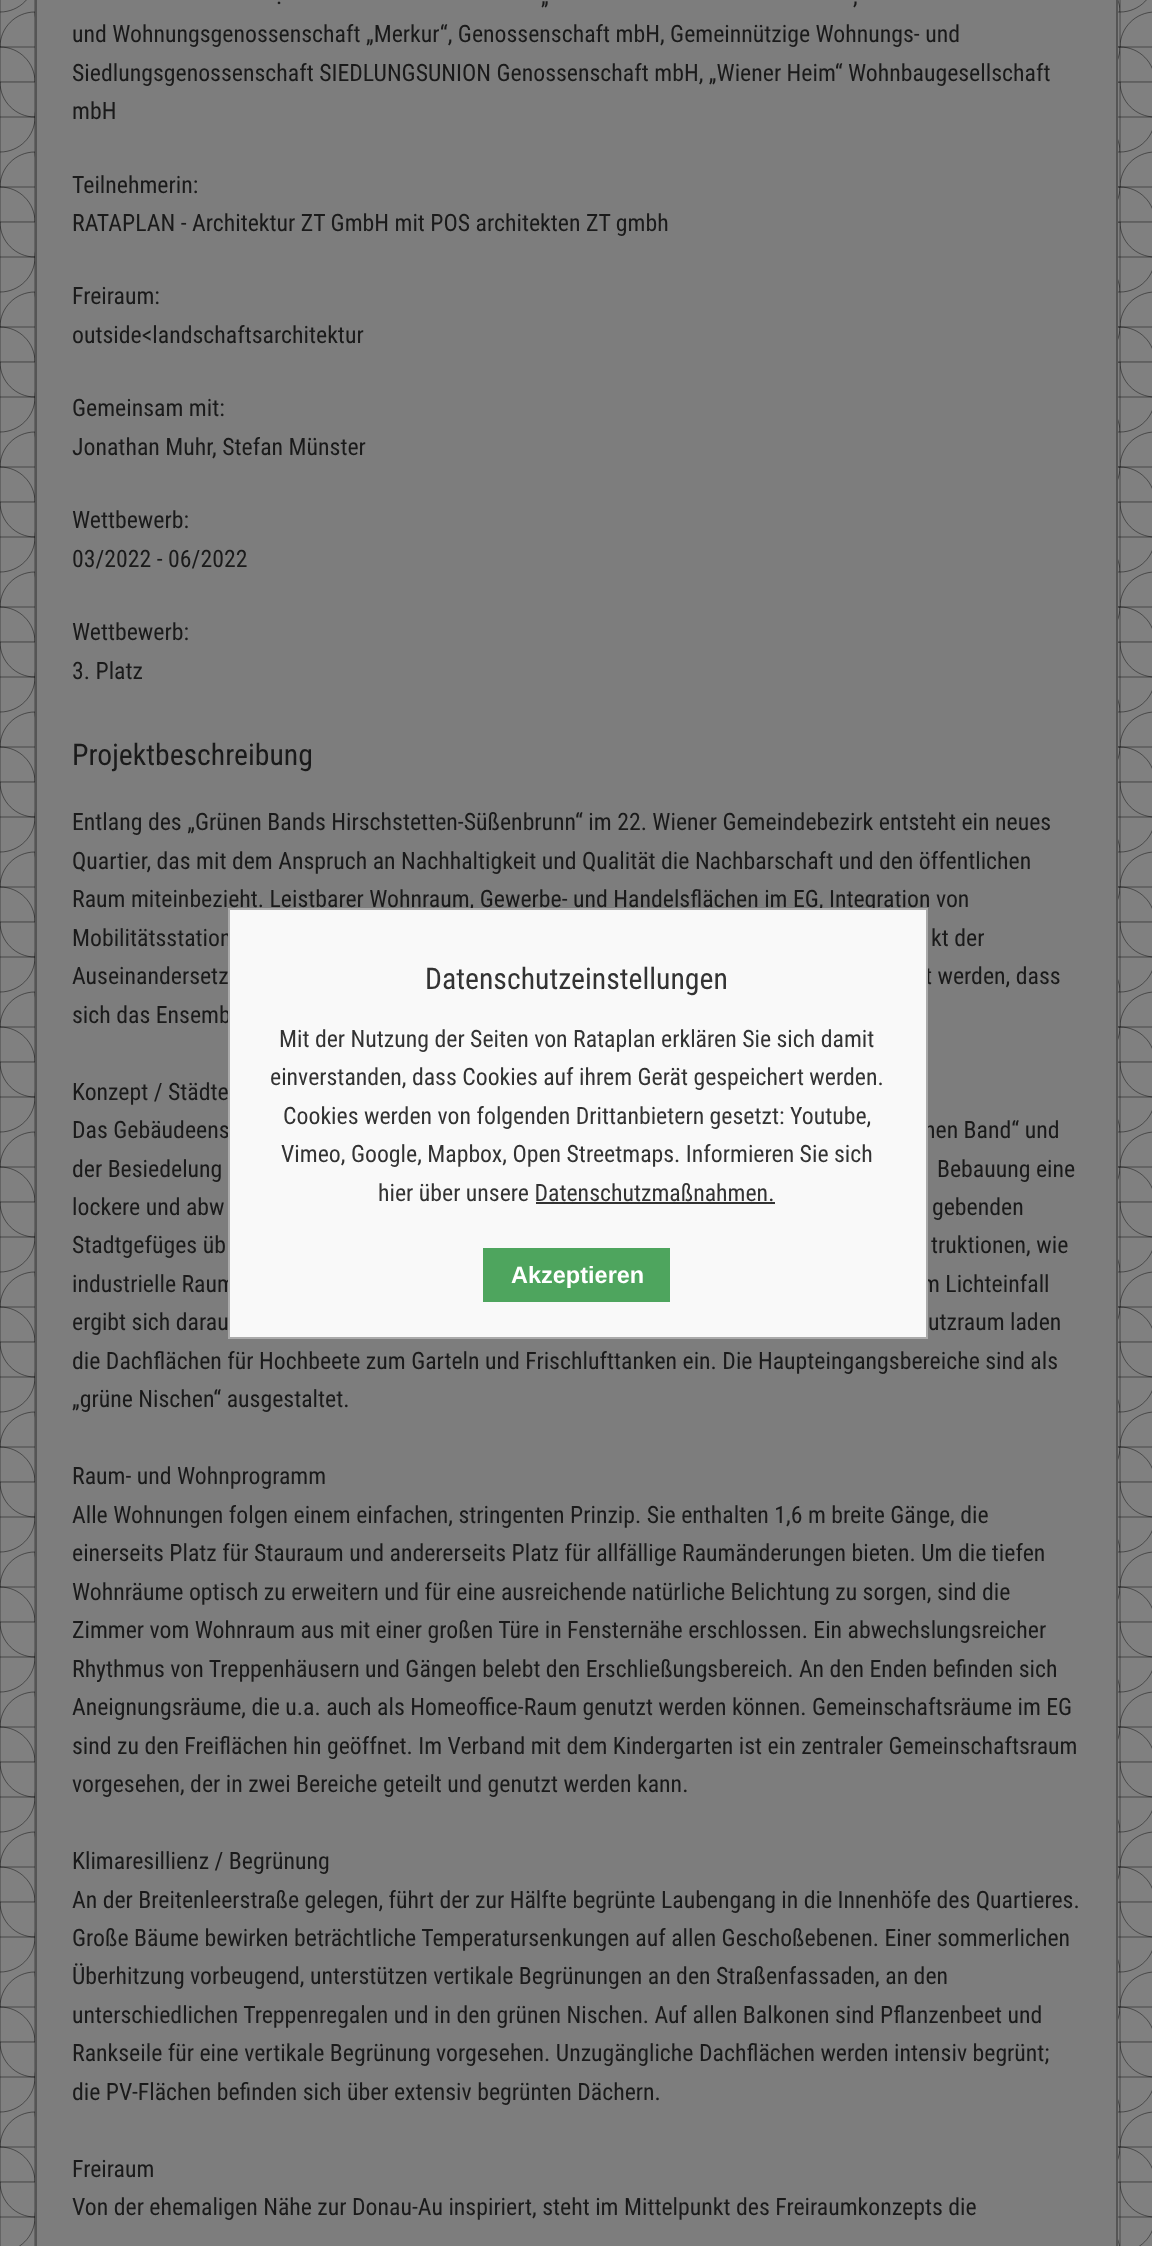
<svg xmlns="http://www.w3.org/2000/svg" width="1152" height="2246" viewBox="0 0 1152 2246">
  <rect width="100%" height="100%" fill="rgb(128,128,128)"/>
  <image x="0" y="0" width="1152" height="2246" href="pic1.png"/>
  <rect x="36" y="-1" width="1081" height="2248" fill="rgb(125,125,125)" stroke="rgb(85,85,85)" stroke-width="2"/>
  <g font-family="Roboto Condensed" font-size="23.8" fill="rgb(26,26,26)">
    <text x="276" y="4">.</text>
    <text x="541" y="4">„</text>
    <text x="853" y="4">,</text>
    <text>
      <tspan x="72" y="42">und Wohnungsgenossenschaft „Merkur“, Genossenschaft mbH, Gemeinnützige Wohnungs- und</tspan>
      <tspan x="72" y="81">Siedlungsgenossenschaft SIEDLUNGSUNION Genossenschaft mbH, „Wiener Heim“ Wohnbaugesellschaft</tspan>
      <tspan x="72" y="119">mbH</tspan>
    </text>
    <text>
      <tspan x="72" y="193">Teilnehmerin:</tspan>
      <tspan x="72" y="231">RATAPLAN - Architektur ZT GmbH mit POS architekten ZT gmbh</tspan>
    </text>
    <text>
      <tspan x="72" y="304">Freiraum:</tspan>
      <tspan x="72" y="343">outside&lt;landschaftsarchitektur</tspan>
    </text>
    <text>
      <tspan x="72" y="416">Gemeinsam mit:</tspan>
      <tspan x="72" y="455">Jonathan Muhr, Stefan Münster</tspan>
    </text>
    <text>
      <tspan x="72" y="528">Wettbewerb:</tspan>
      <tspan x="72" y="567">03/2022 - 06/2022</tspan>
    </text>
    <text>
      <tspan x="72" y="640">Wettbewerb:</tspan>
      <tspan x="72" y="679">3. Platz</tspan>
    </text>
  </g>
  <text x="72" y="765" font-family="Roboto Condensed" font-size="29.75" fill="rgb(26,26,26)">Projektbeschreibung</text>
  <g font-family="Roboto Condensed" font-size="23.8" fill="rgb(26,26,26)">
    <text>
      <tspan x="72" y="830">Entlang des „Grünen Bands Hirschstetten-Süßenbrunn“ im 22. Wiener Gemeindebezirk entsteht ein neues</tspan>
      <tspan x="72" y="869">Quartier, das mit dem Anspruch an Nachhaltigkeit und Qualität die Nachbarschaft und den öffentlichen</tspan>
      <tspan x="72" y="907">Raum miteinbezieht. Leistbarer Wohnraum, Gewerbe- und Handelsflächen im EG, Integration von</tspan>
      <tspan x="72" y="946">Mobilitätsstation</tspan>
    </text>
    <text x="931" y="946">kt der</text>
    <text x="72" y="984">Auseinandersetz</text>
    <text x="925" y="984">t werden, dass</text>
    <text x="72" y="1023">sich das Ensemb</text>
    <text>
      <tspan x="72" y="1100">Konzept / Städte</tspan>
      <tspan x="72" y="1138">Das Gebäudeens</tspan>
    </text>
    <text x="924" y="1138">nen Band“ und</text>
    <text x="72" y="1177">der Besiedelung</text>
    <text x="937" y="1177">Bebauung eine</text>
    <text x="72" y="1215">lockere und abw</text>
    <text x="932" y="1215">gebenden</text>
    <text x="72" y="1253">Stadtgefüges üb</text>
    <text x="931" y="1253">truktionen, wie</text>
    <text x="72" y="1292">industrielle Raum</text>
    <text x="922" y="1292">m Lichteinfall</text>
    <text x="72" y="1330">ergibt sich darau</text>
    <text x="928" y="1330">utzraum laden</text>
    <text>
      <tspan x="72" y="1369">die Dachflächen für Hochbeete zum Garteln und Frischlufttanken ein. Die Haupteingangsbereiche sind als</tspan>
      <tspan x="72" y="1407">„grüne Nischen“ ausgestaltet.</tspan>
    </text>
    <text>
      <tspan x="72" y="1484">Raum- und Wohnprogramm</tspan>
      <tspan x="72" y="1523">Alle Wohnungen folgen einem einfachen, stringenten Prinzip. Sie enthalten 1,6 m breite Gänge, die</tspan>
      <tspan x="72" y="1561">einerseits Platz für Stauraum und andererseits Platz für allfällige Raumänderungen bieten. Um die tiefen</tspan>
      <tspan x="72" y="1600">Wohnräume optisch zu erweitern und für eine ausreichende natürliche Belichtung zu sorgen, sind die</tspan>
      <tspan x="72" y="1638">Zimmer vom Wohnraum aus mit einer großen Türe in Fensternähe erschlossen. Ein abwechslungsreicher</tspan>
      <tspan x="72" y="1677">Rhythmus von Treppenhäusern und Gängen belebt den Erschließungsbereich. An den Enden befinden sich</tspan>
      <tspan x="72" y="1715">Aneignungsräume, die u.a. auch als Homeoffice-Raum genutzt werden können. Gemeinschaftsräume im EG</tspan>
      <tspan x="72" y="1754">sind zu den Freiflächen hin geöffnet. Im Verband mit dem Kindergarten ist ein zentraler Gemeinschaftsraum</tspan>
      <tspan x="72" y="1792">vorgesehen, der in zwei Bereiche geteilt und genutzt werden kann.</tspan>
    </text>
    <text>
      <tspan x="72" y="1869">Klimaresillienz / Begrünung</tspan>
      <tspan x="72" y="1908">An der Breitenleerstraße gelegen, führt der zur Hälfte begrünte Laubengang in die Innenhöfe des Quartieres.</tspan>
      <tspan x="72" y="1946">Große Bäume bewirken beträchtliche Temperatursenkungen auf allen Geschoßebenen. Einer sommerlichen</tspan>
      <tspan x="72" y="1984">Überhitzung vorbeugend, unterstützen vertikale Begrünungen an den Straßenfassaden, an den</tspan>
      <tspan x="72" y="2023">unterschiedlichen Treppenregalen und in den grünen Nischen. Auf allen Balkonen sind Pflanzenbeet und</tspan>
      <tspan x="72" y="2061">Rankseile für eine vertikale Begrünung vorgesehen. Unzugängliche Dachflächen werden intensiv begrünt;</tspan>
      <tspan x="72" y="2100">die PV-Flächen befinden sich über extensiv begrünten Dächern.</tspan>
    </text>
    <text>
      <tspan x="72" y="2177">Freiraum</tspan>
      <tspan x="72" y="2215">Von der ehemaligen Nähe zur Donau-Au inspiriert, steht im Mittelpunkt des Freiraumkonzepts die</tspan>
    </text>
  </g>
  <rect x="229" y="909" width="698" height="429" fill="rgb(249,249,249)" stroke="rgb(170,170,170)" stroke-width="2"/>
  <text x="425" y="989" font-family="Roboto Condensed" font-size="29.75" fill="rgb(51,51,51)">Datenschutzeinstellungen</text>
  <g font-family="Roboto Condensed" font-size="23.8" fill="rgb(51,51,51)">
    <text x="279" y="1047">Mit der Nutzung der Seiten von Rataplan erklären Sie sich damit</text>
    <text x="270" y="1085">einverstanden, dass Cookies auf ihrem Gerät gespeichert werden.</text>
    <text x="283" y="1124">Cookies werden von folgenden Drittanbietern gesetzt: Youtube,</text>
    <text x="281" y="1162">Vimeo, Google, Mapbox, Open Streetmaps. Informieren Sie sich</text>
    <text x="378" y="1201">hier über unsere Datenschutzmaßnahmen.</text>
  </g>
  <rect x="536" y="1202" width="239" height="2" fill="rgb(51,51,51)"/>
  <rect x="483" y="1248" width="187" height="54" fill="rgb(78,165,94)"/>
  <text x="511" y="1283" font-family="Liberation Sans" font-size="23.5" font-weight="bold" fill="rgb(255,255,255)">Akzeptieren</text>
</svg>
